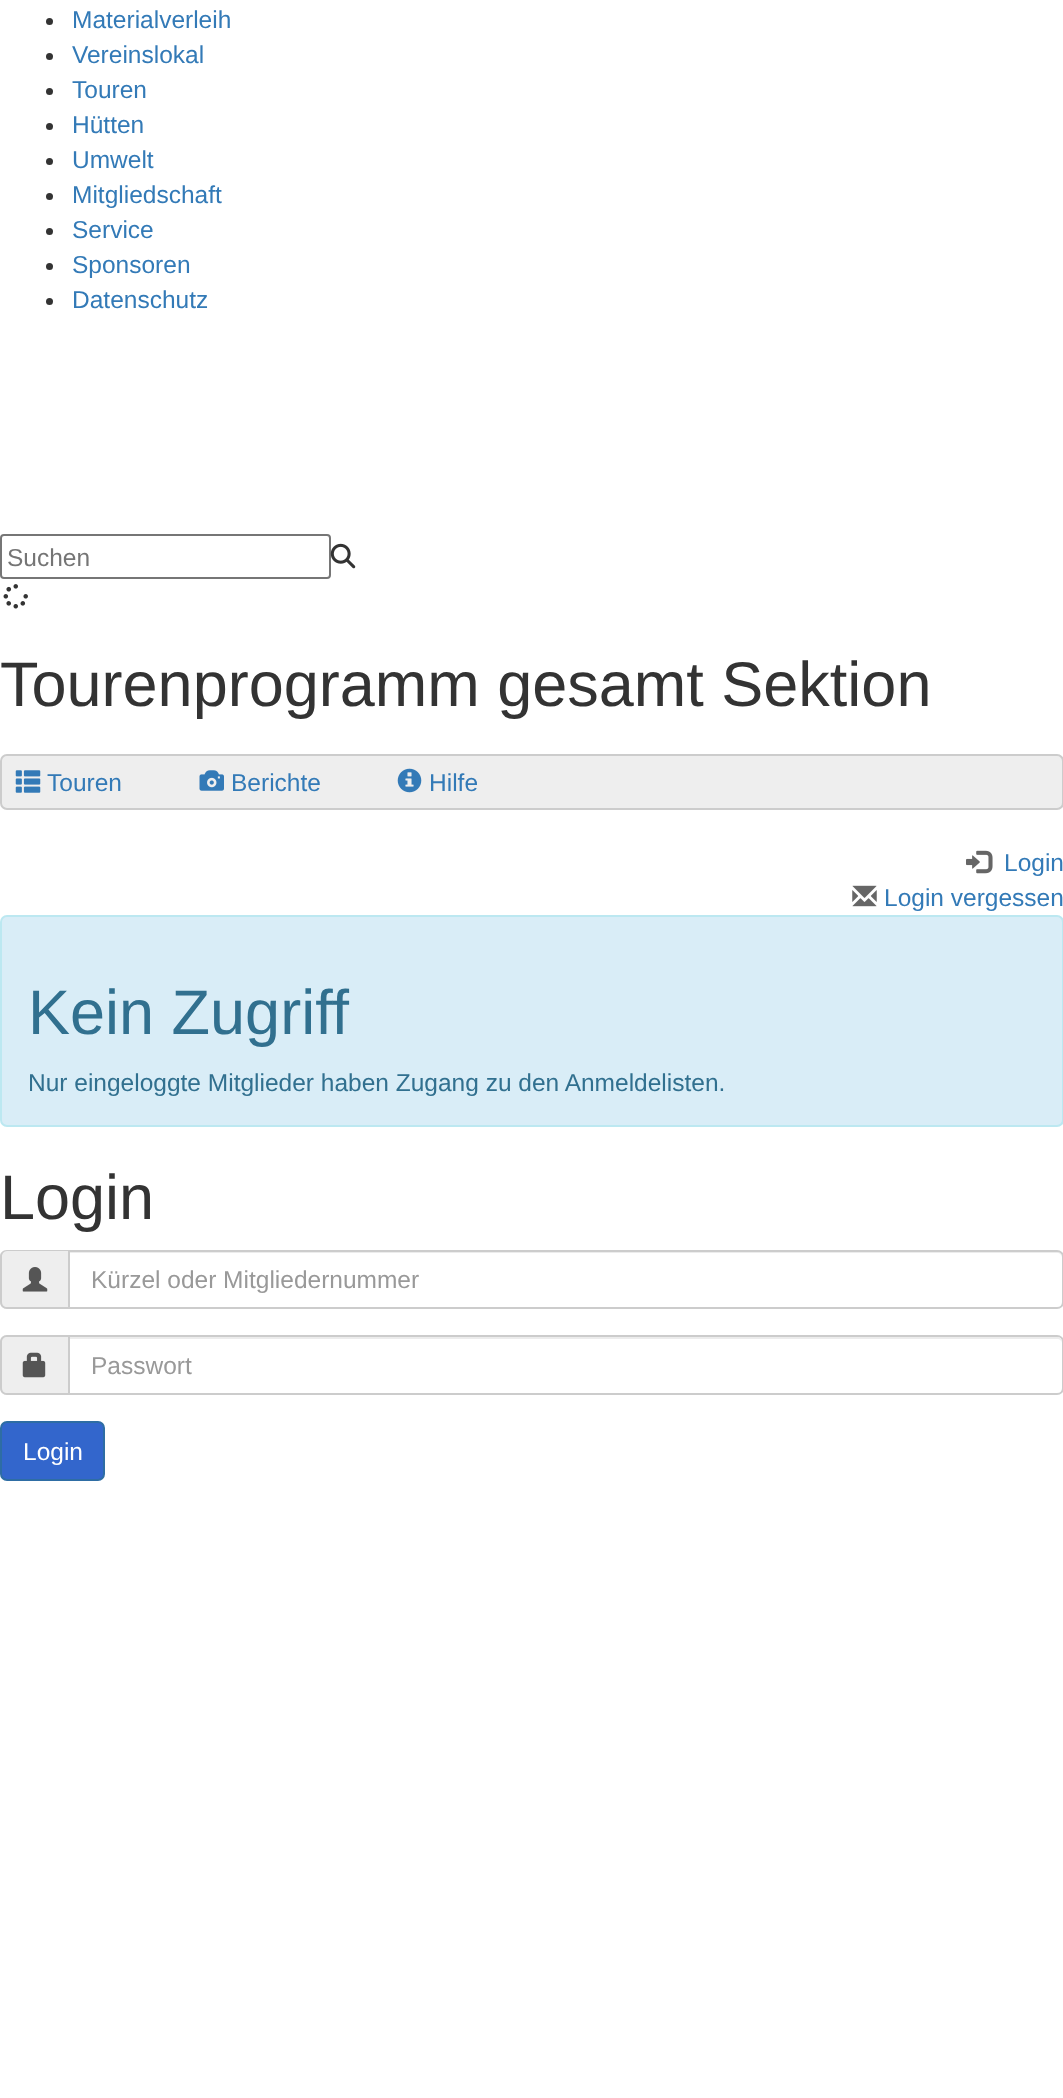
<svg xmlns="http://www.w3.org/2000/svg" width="1063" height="2098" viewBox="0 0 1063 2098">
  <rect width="100%" height="100%" fill="rgb(255,255,255)"/>
  <circle cx="49.5" cy="21.5" r="3.5" fill="rgb(51,51,51)"/>
  <text x="72" y="28" font-family="Liberation Sans" font-size="24.5" fill="rgb(51,122,183)">Materialverleih</text>
  <circle cx="49.5" cy="56.5" r="3.5" fill="rgb(51,51,51)"/>
  <text x="72" y="63" font-family="Liberation Sans" font-size="24.5" fill="rgb(51,122,183)">Vereinslokal</text>
  <circle cx="49.5" cy="91.5" r="3.5" fill="rgb(51,51,51)"/>
  <text x="72" y="98" font-family="Liberation Sans" font-size="24.5" fill="rgb(51,122,183)">Touren</text>
  <circle cx="49.5" cy="126.5" r="3.5" fill="rgb(51,51,51)"/>
  <text x="72" y="133" font-family="Liberation Sans" font-size="24.5" fill="rgb(51,122,183)">Hütten</text>
  <circle cx="49.5" cy="161.5" r="3.5" fill="rgb(51,51,51)"/>
  <text x="72" y="168" font-family="Liberation Sans" font-size="24.5" fill="rgb(51,122,183)">Umwelt</text>
  <circle cx="49.5" cy="196.5" r="3.5" fill="rgb(51,51,51)"/>
  <text x="72" y="203" font-family="Liberation Sans" font-size="24.5" fill="rgb(51,122,183)">Mitgliedschaft</text>
  <circle cx="49.5" cy="231.5" r="3.5" fill="rgb(51,51,51)"/>
  <text x="72" y="238" font-family="Liberation Sans" font-size="24.5" fill="rgb(51,122,183)">Service</text>
  <circle cx="49.5" cy="266.5" r="3.5" fill="rgb(51,51,51)"/>
  <text x="72" y="273" font-family="Liberation Sans" font-size="24.5" fill="rgb(51,122,183)">Sponsoren</text>
  <circle cx="49.5" cy="301.5" r="3.5" fill="rgb(51,51,51)"/>
  <text x="72" y="308" font-family="Liberation Sans" font-size="24.5" fill="rgb(51,122,183)">Datenschutz</text>
  <rect x="1" y="535" width="329" height="43" rx="3" fill="none" stroke="rgb(118,118,118)" stroke-width="2"/>
  <text x="7" y="566" font-family="Liberation Sans" font-size="24.5" fill="rgb(117,117,117)">Suchen</text>
  <image x="330" y="543" width="26" height="26" href="pic1.png"/>
  <image x="3" y="584" width="25" height="25" href="pic2.png"/>
  <text x="0" y="706" font-family="Liberation Sans" font-size="63" fill="rgb(51,51,51)">Tourenprogramm gesamt Sektion</text>
  <rect x="1" y="755" width="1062" height="54" rx="6" fill="rgb(238,238,238)" stroke="rgb(204,204,204)" stroke-width="2"/>
  <image x="15" y="770" width="26" height="23" href="pic3.png"/>
  <text x="47" y="791" font-family="Liberation Sans" font-size="24.5" fill="rgb(51,122,183)">Touren</text>
  <image x="199" y="770" width="25" height="21" href="pic4.png"/>
  <text x="231" y="791" font-family="Liberation Sans" font-size="24.5" fill="rgb(51,122,183)">Berichte</text>
  <image x="397" y="768" width="25" height="25" href="pic5.png"/>
  <text x="429" y="791" font-family="Liberation Sans" font-size="24.5" fill="rgb(51,122,183)">Hilfe</text>
  <image x="966" y="850" width="27" height="24" href="pic6.png"/>
  <text x="1004" y="871" font-family="Liberation Sans" font-size="24.5" fill="rgb(51,122,183)">Login</text>
  <image x="852" y="885" width="25" height="22" href="pic7.png"/>
  <text x="884" y="906" font-family="Liberation Sans" font-size="24.5" fill="rgb(51,122,183)">Login vergessen</text>
  <rect x="1" y="916" width="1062" height="210" rx="6" fill="rgb(217,237,247)" stroke="rgb(188,232,241)" stroke-width="2"/>
  <text x="28" y="1034" font-family="Liberation Sans" font-size="63" fill="rgb(49,112,143)">Kein Zugriff</text>
  <text x="28" y="1091" font-family="Liberation Sans" font-size="24.5" fill="rgb(49,112,143)">Nur eingeloggte Mitglieder haben Zugang zu den Anmeldelisten.</text>
  <text x="0" y="1219" font-family="Liberation Sans" font-size="63" fill="rgb(51,51,51)">Login</text>
  <path d="M7 1250H68V1309H7C3 1309 0 1306 0 1302V1257C0 1253 3 1250 7 1250Z" fill="rgb(238,238,238)"/>
  <path d="M7 1250H68V1309H7C3 1309 0 1306 0 1302V1256C0 1253 3 1250 7 1250ZM7 1251H68V1307H7C4 1307 2 1305 2 1302V1256C2 1254 4 1251 7 1251Z" fill="rgb(204,204,204)" fill-rule="evenodd"/>
  <image x="22" y="1267" width="26" height="25" href="pic8.png"/>
  <path d="M70 1253H1057C1060 1253 1062 1255 1062 1258C1062 1255 1061 1251 1057 1251H70Z" fill="rgb(236,236,236)"/>
  <path d="M69 1251H1057C1060.5 1251 1063 1253.5 1063 1257V1302C1063 1305.5 1060.5 1308 1057 1308H69Z" fill="none" stroke="rgb(204,204,204)" stroke-width="2"/>
  <text x="91" y="1288" font-family="Liberation Sans" font-size="24.5" fill="rgb(153,153,153)">Kürzel oder Mitgliedernummer</text>
  <path d="M7 1335H68V1395H7C3 1395 0 1392 0 1388V1342C0 1338 3 1335 7 1335Z" fill="rgb(238,238,238)"/>
  <path d="M7 1335H68V1395H7C3 1395 0 1392 0 1388V1342C0 1338 3 1335 7 1335ZM7 1337H68V1393H7C4 1393 2 1391 2 1388V1342C2 1339 4 1337 7 1337Z" fill="rgb(204,204,204)" fill-rule="evenodd"/>
  <image x="22" y="1352" width="24" height="26" href="pic9.png"/>
  <path d="M70 1339H1057C1060 1339 1062 1341 1062 1344C1062 1341 1061 1337 1057 1337H70Z" fill="rgb(236,236,236)"/>
  <path d="M69 1336H1057C1060.5 1336 1063 1338.5 1063 1342V1388C1063 1391.5 1060.5 1394 1057 1394H69Z" fill="none" stroke="rgb(204,204,204)" stroke-width="2"/>
  <text x="91" y="1374" font-family="Liberation Sans" font-size="24.5" fill="rgb(153,153,153)">Passwort</text>
  <rect x="1" y="1422" width="103" height="58" rx="6" fill="rgb(51,102,204)" stroke="rgb(46,109,164)" stroke-width="2"/>
  <text x="23" y="1460" font-family="Liberation Sans" font-size="24.5" fill="rgb(255,255,255)">Login</text>
</svg>
